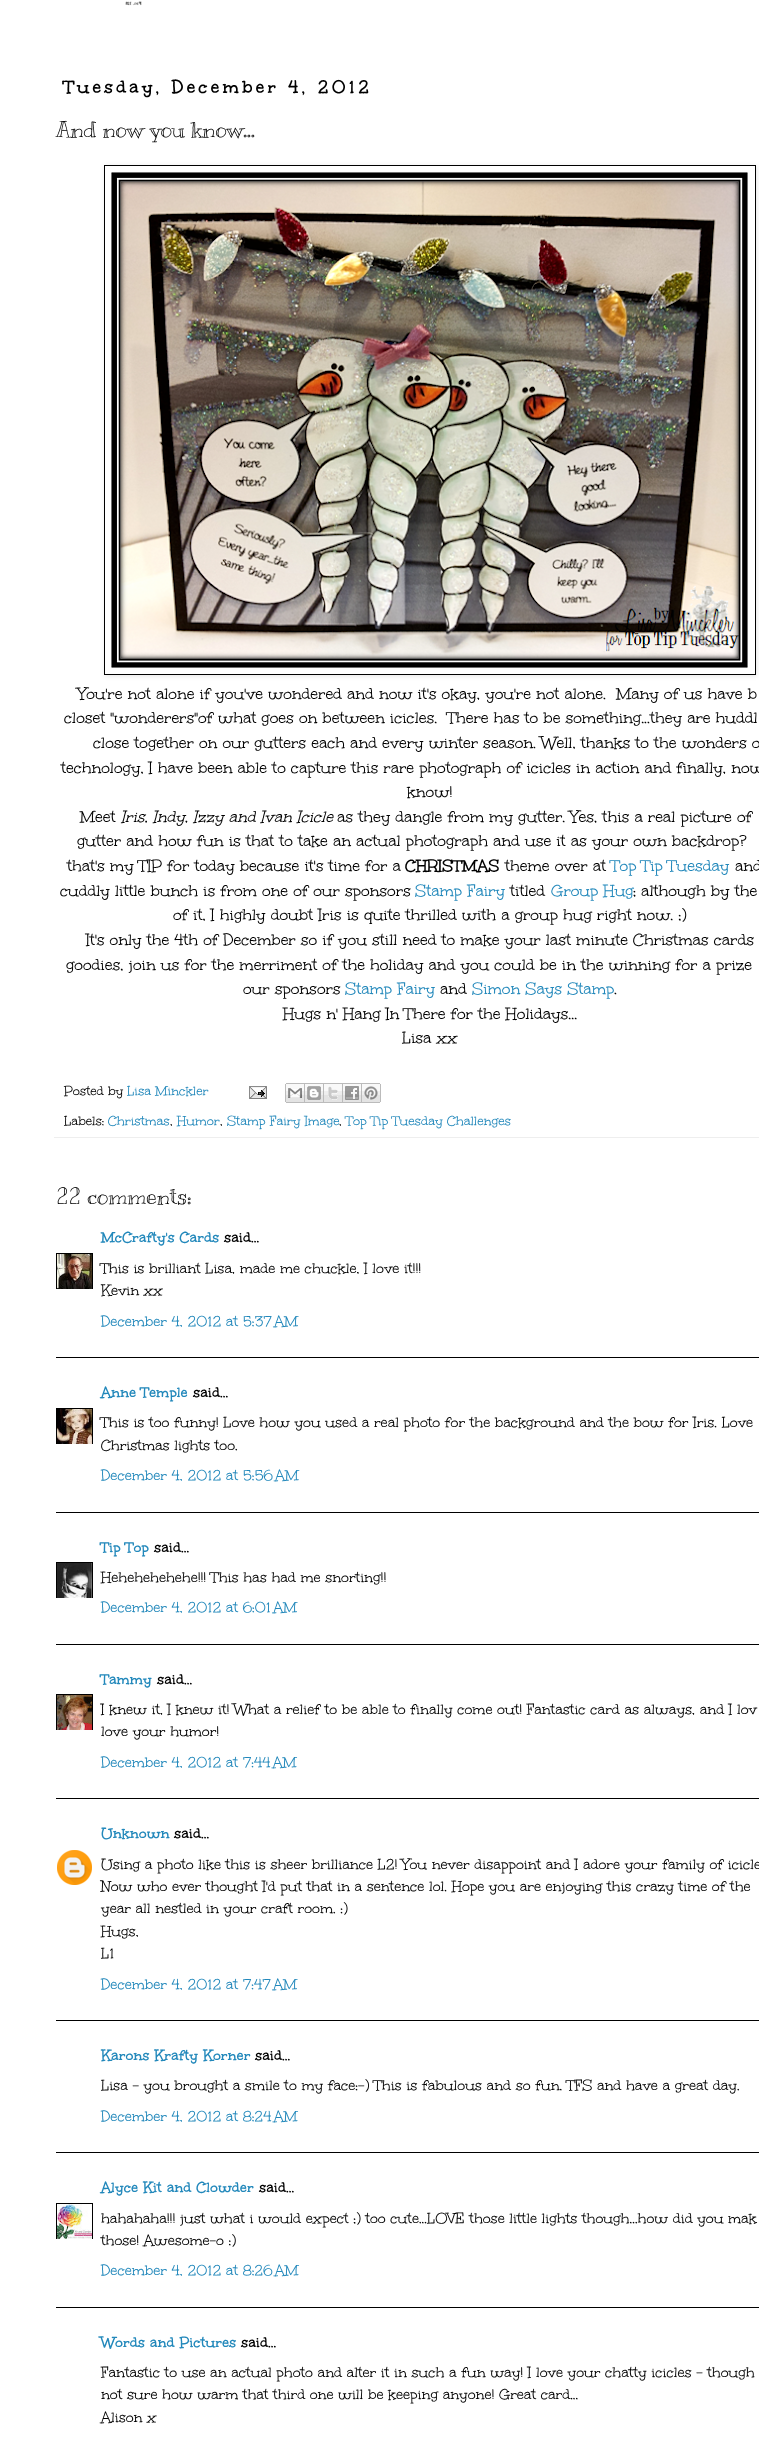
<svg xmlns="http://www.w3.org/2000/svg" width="759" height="2441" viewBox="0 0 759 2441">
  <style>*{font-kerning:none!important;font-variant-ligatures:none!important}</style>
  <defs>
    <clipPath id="clip1"><path d="M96 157H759V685H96ZM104 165H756V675H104Z" clip-rule="evenodd"/></clipPath>
    <clipPath id="clip2"><rect x="56" y="1253" width="37" height="36"/></clipPath>
    <clipPath id="clip3"><rect x="56" y="1408" width="37" height="36"/></clipPath>
    <clipPath id="clip4"><rect x="56" y="1562" width="37" height="36"/></clipPath>
    <clipPath id="clip5"><rect x="56" y="1694" width="37" height="36"/></clipPath>
    <clipPath id="clip6"><rect x="56" y="2203" width="37" height="36"/></clipPath>
  </defs>
  <rect width="100%" height="100%" fill="rgb(255,255,255)"/>
  <image x="125" y="1" width="17" height="5" href="pic1.png"/>
  <text x="64" y="94" font-family="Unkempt" font-size="20" font-weight="bold" letter-spacing="3" fill="rgb(0,0,0)">Tuesday, December 4, 2012</text>
  <text x="56" y="137" font-family="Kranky" font-size="22" fill="rgb(0,0,0)">And now you know...</text>
  <g clip-path="url(#clip1)">
    <rect x="105" y="166" width="652" height="510" fill="rgba(0,0,0,0.1)" filter="blur(2.5px)"/>
  </g>
  <rect x="104.5" y="165.5" width="651" height="509" fill="none" stroke="rgb(0,0,0)"/>
  <image x="111" y="172" width="637" height="496" href="pic2.png"/>
  <g font-family="Unkempt" font-size="17.6" fill="rgb(0,0,0)">
    <text x="78" y="700" xml:space="preserve">You're not alone if you've wondered and now it's okay, you're not alone.  Many of us have b</text>
    <text x="64" y="724" xml:space="preserve">closet "wonderers"of what goes on between icicles.  There has to be something...they are huddl</text>
    <text x="93" y="749">close together on our gutters each and every winter season. Well, thanks to the wonders o</text>
    <text x="61" y="774">technology, I have been able to capture this rare photograph of icicles in action and finally, now</text>
    <text x="407" y="798">know!</text>
    <text x="80" y="823">Meet</text>
  </g>
  <text x="121" y="823" font-family="Unkempt" font-size="17.6" font-style="italic" fill="rgb(0,0,0)">Iris, Indy, Izzy and Ivan Icicle</text>
  <g font-family="Unkempt" font-size="17.6" fill="rgb(0,0,0)">
    <text x="337" y="823">as they dangle from my gutter. Yes, this a real picture of</text>
    <text x="77" y="847">gutter and how fun is that to take an actual photograph and use it as your own backdrop?</text>
    <text x="67" y="872">that's my TIP for today because it's time for a</text>
  </g>
  <text x="405" y="872" font-family="Unkempt" font-size="17.6" font-weight="bold" fill="rgb(0,0,0)">CHRISTMAS</text>
  <text x="505" y="872" font-family="Unkempt" font-size="17.6" fill="rgb(0,0,0)">theme over at</text>
  <text x="611" y="872" font-family="Unkempt" font-size="17.6" fill="rgb(34,136,187)">Top Tip Tuesday</text>
  <g font-family="Unkempt" font-size="17.6" fill="rgb(0,0,0)">
    <text x="735" y="872">and</text>
    <text x="60" y="897">cuddly little bunch is from one of our sponsors</text>
  </g>
  <text x="415" y="897" font-family="Unkempt" font-size="17.6" fill="rgb(34,136,187)">Stamp Fairy</text>
  <text x="510" y="897" font-family="Unkempt" font-size="17.6" fill="rgb(0,0,0)">titled</text>
  <text x="551" y="897" font-family="Unkempt" font-size="17.6" fill="rgb(34,136,187)">Group Hug</text>
  <g font-family="Unkempt" font-size="17.6" fill="rgb(0,0,0)">
    <text x="633" y="897">; although by the</text>
    <text x="173" y="921">of it, I highly doubt Iris is quite thrilled with a group hug right now. ;)</text>
    <text x="86" y="946">It's only the 4th of December so if you still need to make your last minute Christmas cards</text>
    <text x="66" y="971">goodies, join us for the merriment of the holiday and you could be in the winning for a prize</text>
    <text x="243" y="995">our sponsors</text>
  </g>
  <text x="345" y="995" font-family="Unkempt" font-size="17.6" fill="rgb(34,136,187)">Stamp Fairy</text>
  <text x="440" y="995" font-family="Unkempt" font-size="17.6" fill="rgb(0,0,0)">and</text>
  <text x="472" y="995" font-family="Unkempt" font-size="17.6" fill="rgb(34,136,187)">Simon Says Stamp</text>
  <g font-family="Unkempt" font-size="17.6" fill="rgb(0,0,0)">
    <text x="614" y="995">.</text>
    <text x="283" y="1020">Hugs n' Hang In There for the Holidays...</text>
    <text x="402" y="1044">Lisa xx</text>
  </g>
  <rect x="54" y="1137" width="705" height="1" fill="rgb(238,238,238)"/>
  <text x="64" y="1096" font-family="Unkempt" font-size="14.4" fill="rgb(0,0,0)">Posted by</text>
  <text x="127" y="1096" font-family="Unkempt" font-size="14.4" fill="rgb(34,136,187)">Lisa Minckler</text>
  <image x="249" y="1086" width="18" height="13" href="pic3.png"/>
  <image x="285" y="1083" width="20" height="20" href="pic4.png"/>
  <image x="305" y="1083" width="19" height="20" href="pic5.png"/>
  <image x="324" y="1083" width="19" height="20" href="pic6.png"/>
  <image x="343" y="1083" width="19" height="20" href="pic7.png"/>
  <image x="362" y="1083" width="19" height="20" href="pic8.png"/>
  <text x="64" y="1126" font-family="Unkempt" font-size="14.4" fill="rgb(0,0,0)">Labels:</text>
  <text x="108" y="1126" font-family="Unkempt" font-size="14.4" fill="rgb(34,136,187)">Christmas</text>
  <text x="170" y="1126" font-family="Unkempt" font-size="14.4" fill="rgb(0,0,0)">,</text>
  <text x="177" y="1126" font-family="Unkempt" font-size="14.4" fill="rgb(34,136,187)">Humor</text>
  <text x="220" y="1126" font-family="Unkempt" font-size="14.4" fill="rgb(0,0,0)">,</text>
  <text x="227" y="1126" font-family="Unkempt" font-size="14.4" fill="rgb(34,136,187)">Stamp Fairy Image</text>
  <text x="339" y="1126" font-family="Unkempt" font-size="14.4" fill="rgb(0,0,0)">,</text>
  <text x="346" y="1126" font-family="Unkempt" font-size="14.4" fill="rgb(34,136,187)">Top Tip Tuesday Challenges</text>
  <text x="56" y="1204" font-family="Kranky" font-size="22" fill="rgb(0,0,0)">22 comments:</text>
  <text x="101" y="1243" font-family="Unkempt" font-size="16" font-weight="bold" fill="rgb(34,136,187)">McCrafty's Cards</text>
  <text x="224" y="1243" font-family="Unkempt" font-size="16" font-weight="bold" fill="rgb(0,0,0)">said...</text>
  <g clip-path="url(#clip2)">
    <rect x="56.5" y="1253.5" width="36" height="36" fill="none" stroke="rgb(0,0,0)"/>
  </g>
  <image x="57" y="1254" width="35" height="35" href="pic9.png"/>
  <g font-family="Unkempt" font-size="16" fill="rgb(0,0,0)">
    <text>
      <tspan x="101" y="1274">This is brilliant Lisa, made me chuckle, I love it!!!</tspan>
      <tspan x="101" y="1296">Kevin xx</tspan>
    </text>
  </g>
  <text x="101" y="1327" font-family="Unkempt" font-size="16" fill="rgb(34,136,187)">December 4, 2012 at 5:37 AM</text>
  <rect x="56" y="1357" width="703" height="1" fill="rgb(0,0,0)"/>
  <text x="101" y="1398" font-family="Unkempt" font-size="16" font-weight="bold" fill="rgb(34,136,187)">Anne Temple</text>
  <text x="193" y="1398" font-family="Unkempt" font-size="16" font-weight="bold" fill="rgb(0,0,0)">said...</text>
  <g clip-path="url(#clip3)">
    <rect x="56.5" y="1408.5" width="36" height="36" fill="none" stroke="rgb(0,0,0)"/>
  </g>
  <image x="57" y="1409" width="35" height="35" href="pic10.png"/>
  <g font-family="Unkempt" font-size="16" fill="rgb(0,0,0)">
    <text>
      <tspan x="101" y="1428">This is too funny! Love how you used a real photo for the background and the bow for Iris. Love</tspan>
      <tspan x="101" y="1451">Christmas lights too.</tspan>
    </text>
  </g>
  <text x="101" y="1481" font-family="Unkempt" font-size="16" fill="rgb(34,136,187)">December 4, 2012 at 5:56 AM</text>
  <rect x="56" y="1512" width="703" height="1" fill="rgb(0,0,0)"/>
  <text x="101" y="1553" font-family="Unkempt" font-size="16" font-weight="bold" fill="rgb(34,136,187)">Tip Top</text>
  <text x="154" y="1553" font-family="Unkempt" font-size="16" font-weight="bold" fill="rgb(0,0,0)">said...</text>
  <g clip-path="url(#clip4)">
    <rect x="56.5" y="1562.5" width="36" height="36" fill="none" stroke="rgb(0,0,0)"/>
  </g>
  <image x="57" y="1563" width="35" height="35" href="pic11.png"/>
  <text x="101" y="1583" font-family="Unkempt" font-size="16" fill="rgb(0,0,0)">Hehehehehehe!!! This has had me snorting!!</text>
  <text x="101" y="1613" font-family="Unkempt" font-size="16" fill="rgb(34,136,187)">December 4, 2012 at 6:01 AM</text>
  <rect x="56" y="1644" width="703" height="1" fill="rgb(0,0,0)"/>
  <text x="101" y="1685" font-family="Unkempt" font-size="16" font-weight="bold" fill="rgb(34,136,187)">Tammy</text>
  <text x="157" y="1685" font-family="Unkempt" font-size="16" font-weight="bold" fill="rgb(0,0,0)">said...</text>
  <g clip-path="url(#clip5)">
    <rect x="56.5" y="1694.5" width="36" height="36" fill="none" stroke="rgb(0,0,0)"/>
  </g>
  <image x="57" y="1695" width="35" height="35" href="pic12.png"/>
  <g font-family="Unkempt" font-size="16" fill="rgb(0,0,0)">
    <text>
      <tspan x="101" y="1715">I knew it, I knew it! What a relief to be able to finally come out! Fantastic card as always, and I lov</tspan>
      <tspan x="101" y="1737">love your humor!</tspan>
    </text>
  </g>
  <text x="101" y="1768" font-family="Unkempt" font-size="16" fill="rgb(34,136,187)">December 4, 2012 at 7:44 AM</text>
  <rect x="56" y="1798" width="703" height="1" fill="rgb(0,0,0)"/>
  <text x="101" y="1839" font-family="Unkempt" font-size="16" font-weight="bold" fill="rgb(34,136,187)">Unknown</text>
  <text x="174" y="1839" font-family="Unkempt" font-size="16" font-weight="bold" fill="rgb(0,0,0)">said...</text>
  <image x="57" y="1850" width="35" height="35" href="pic13.png"/>
  <g font-family="Unkempt" font-size="16" fill="rgb(0,0,0)">
    <text>
      <tspan x="101" y="1870">Using a photo like this is sheer brilliance L2! You never disappoint and I adore your family of icicle</tspan>
      <tspan x="101" y="1892">Now who ever thought I'd put that in a sentence lol. Hope you are enjoying this crazy time of the</tspan>
      <tspan x="101" y="1914">year all nestled in your craft room. :)</tspan>
      <tspan x="101" y="1937">Hugs,</tspan>
      <tspan x="101" y="1959">L1</tspan>
    </text>
  </g>
  <text x="101" y="1990" font-family="Unkempt" font-size="16" fill="rgb(34,136,187)">December 4, 2012 at 7:47 AM</text>
  <rect x="56" y="2020" width="703" height="1" fill="rgb(0,0,0)"/>
  <text x="101" y="2061" font-family="Unkempt" font-size="16" font-weight="bold" fill="rgb(34,136,187)">Karons Krafty Korner</text>
  <text x="255" y="2061" font-family="Unkempt" font-size="16" font-weight="bold" fill="rgb(0,0,0)">said...</text>
  <text x="101" y="2091" font-family="Unkempt" font-size="16" fill="rgb(0,0,0)">Lisa - you brought a smile to my face:-) This is fabulous and so fun. TFS and have a great day.</text>
  <text x="101" y="2122" font-family="Unkempt" font-size="16" fill="rgb(34,136,187)">December 4, 2012 at 8:24 AM</text>
  <rect x="56" y="2152" width="703" height="1" fill="rgb(0,0,0)"/>
  <text x="101" y="2193" font-family="Unkempt" font-size="16" font-weight="bold" fill="rgb(34,136,187)">Alyce Kit and Clowder</text>
  <text x="259" y="2193" font-family="Unkempt" font-size="16" font-weight="bold" fill="rgb(0,0,0)">said...</text>
  <g clip-path="url(#clip6)">
    <rect x="56.5" y="2203.5" width="36" height="36" fill="none" stroke="rgb(0,0,0)"/>
  </g>
  <image x="57" y="2204" width="35" height="35" href="pic14.png"/>
  <g font-family="Unkempt" font-size="16" fill="rgb(0,0,0)">
    <text>
      <tspan x="101" y="2224">hahahaha!!! just what i would expect ;) too cute...LOVE those little lights though...how did you mak</tspan>
      <tspan x="101" y="2246">those! Awesome-o :)</tspan>
    </text>
  </g>
  <text x="101" y="2276" font-family="Unkempt" font-size="16" fill="rgb(34,136,187)">December 4, 2012 at 8:26 AM</text>
  <rect x="56" y="2307" width="703" height="1" fill="rgb(0,0,0)"/>
  <text x="101" y="2348" font-family="Unkempt" font-size="16" font-weight="bold" fill="rgb(34,136,187)">Words and Pictures</text>
  <text x="241" y="2348" font-family="Unkempt" font-size="16" font-weight="bold" fill="rgb(0,0,0)">said...</text>
  <g font-family="Unkempt" font-size="16" fill="rgb(0,0,0)">
    <text>
      <tspan x="101" y="2378">Fantastic to use an actual photo and alter it in such a fun way! I love your chatty icicles - though</tspan>
      <tspan x="101" y="2400">not sure how warm that third one will be keeping anyone! Great card...</tspan>
      <tspan x="101" y="2423">Alison x</tspan>
    </text>
  </g>
</svg>
